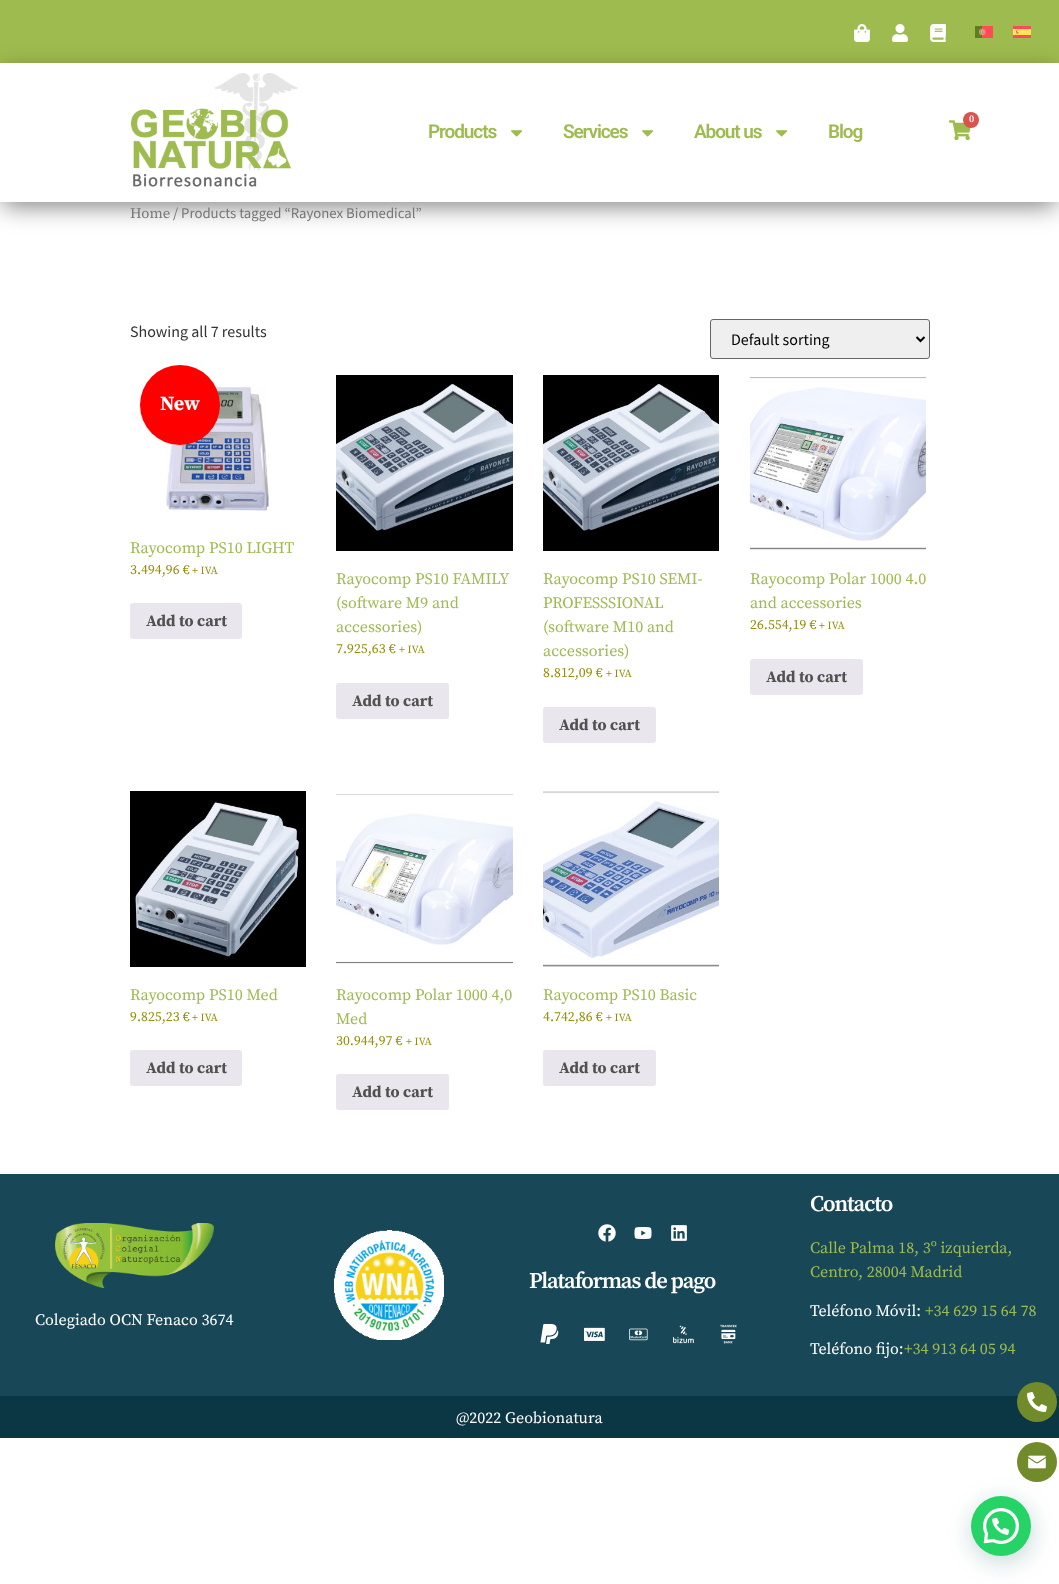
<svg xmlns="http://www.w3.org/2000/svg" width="1059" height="1584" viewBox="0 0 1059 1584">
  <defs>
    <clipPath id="clip1"><path d="M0 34H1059V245H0ZM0 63H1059V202H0Z" clip-rule="evenodd"/></clipPath>
  </defs>
  <rect width="100%" height="100%" fill="rgb(255,255,255)"/>
  <rect x="0" y="0" width="1059" height="63" fill="rgb(158,187,79)"/>
  <image x="854" y="24" width="16" height="18" href="pic1.png"/>
  <image x="892" y="24" width="16" height="18" href="pic2.png"/>
  <image x="930" y="24" width="16" height="18" href="pic3.png"/>
  <image x="975" y="26" width="18" height="12" href="pic4.png"/>
  <image x="1013" y="26" width="18" height="12" href="pic5.png"/>
  <g clip-path="url(#clip1)">
    <rect x="3" y="73" width="1053" height="133" fill="rgba(0,0,0,0.5)" filter="blur(12.5px)"/>
  </g>
  <image x="131" y="73" width="167" height="114" href="pic6.png"/>
  <image x="949" y="120" width="22" height="21" href="pic7.png"/>
  <circle cx="971" cy="120" r="8" fill="rgb(217,83,79)"/>
  <text x="969" y="122" font-family="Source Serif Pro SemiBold" font-size="10" font-weight="600" letter-spacing="-1.1" fill="rgb(255,255,255)">0</text>
  <text x="428" y="138" font-family="Roboto" font-size="19" font-weight="600" letter-spacing="-1.1" fill="rgb(158,187,79)">Products</text>
  <image x="511" y="130" width="12" height="7" href="pic8.png"/>
  <text x="563" y="138" font-family="Roboto" font-size="19" font-weight="600" letter-spacing="-1.1" fill="rgb(158,187,79)">Services</text>
  <image x="642" y="130" width="12" height="7" href="pic8.png"/>
  <text x="694" y="138" font-family="Roboto" font-size="19" font-weight="600" letter-spacing="-1.1" fill="rgb(158,187,79)">About us</text>
  <image x="776" y="130" width="12" height="7" href="pic8.png"/>
  <text x="828" y="138" font-family="Roboto" font-size="19" font-weight="600" letter-spacing="-1.1" fill="rgb(158,187,79)">Blog</text>
  <rect x="0" y="1174" width="1059" height="222" fill="rgb(24,72,87)"/>
  <rect x="0" y="1396" width="1059" height="42" fill="rgb(11,54,68)"/>
  <circle cx="1037" cy="1402" r="20" fill="rgb(113,139,43)"/>
  <image x="1027" y="1392" width="20" height="20" href="pic9.png"/>
  <circle cx="1037" cy="1462" r="20" fill="rgb(113,139,43)"/>
  <image x="1028" y="1455" width="18" height="14" href="pic10.png"/>
  <text x="130" y="218" font-family="Source Serif Pro" font-size="14.75" fill="rgb(118,118,118)">Home</text>
  <text x="173" y="218" font-family="Source Sans Pro" font-size="14.75" fill="rgb(118,118,118)">/ Products tagged “Rayonex Biomedical”</text>
  <text x="130" y="337" font-family="Source Sans Pro" font-size="16" fill="rgb(51,51,51)">Showing all 7 results</text>
  <rect x="710.5" y="319.5" width="219" height="39" rx="2.5" fill="rgb(239,239,239)" stroke="rgb(102,102,102)"/>
  <path d="M916.5 337L920.5 341L924.5 337" fill="none" stroke="rgb(0,0,0)" stroke-width="2"/>
  <text x="731" y="345" font-family="Source Sans Pro" font-size="16" fill="rgb(0,0,0)">Default sorting</text>
  <image x="166" y="386" width="103" height="125" href="pic11.png"/>
  <circle cx="180" cy="405" r="40" fill="rgb(255,0,0)"/>
  <text x="160" y="410" font-family="Source Serif Pro" font-size="20" font-weight="bold" fill="rgb(255,255,255)">New</text>
  <text x="130" y="553" font-family="Source Serif Pro" font-size="16" fill="rgb(158,187,79)">Rayocomp PS10 LIGHT</text>
  <text x="130" y="574" font-family="Source Serif Pro" font-size="13.75" fill="rgb(149,142,9)">3.494,96 €</text>
  <text x="192" y="574" font-family="Source Serif Pro" font-size="11" fill="rgb(149,142,9)">+ IVA</text>
  <rect x="130" y="603" width="112" height="36" rx="3" fill="rgb(233,230,237)"/>
  <text x="146" y="626" font-family="Source Serif Pro" font-size="16" font-weight="bold" fill="rgb(81,81,81)">Add to cart</text>
  <image x="336" y="375" width="177" height="176" href="pic12.png"/>
  <g font-family="Source Serif Pro" font-size="16" fill="rgb(158,187,79)">
    <text>
      <tspan x="336" y="584">Rayocomp PS10 FAMILY</tspan>
      <tspan x="336" y="608">(software M9 and</tspan>
      <tspan x="336" y="632">accessories)</tspan>
    </text>
  </g>
  <text x="336" y="653" font-family="Source Serif Pro" font-size="13.75" fill="rgb(149,142,9)">7.925,63 €</text>
  <text x="399" y="653" font-family="Source Serif Pro" font-size="11" fill="rgb(149,142,9)">+ IVA</text>
  <rect x="336" y="683" width="113" height="36" rx="3" fill="rgb(233,230,237)"/>
  <text x="352" y="706" font-family="Source Serif Pro" font-size="16" font-weight="bold" fill="rgb(81,81,81)">Add to cart</text>
  <image x="543" y="375" width="176" height="176" href="pic13.png"/>
  <g font-family="Source Serif Pro" font-size="16" fill="rgb(158,187,79)">
    <text>
      <tspan x="543" y="584">Rayocomp PS10 SEMI-</tspan>
      <tspan x="543" y="608">PROFESSSIONAL</tspan>
      <tspan x="543" y="632">(software M10 and</tspan>
      <tspan x="543" y="656">accessories)</tspan>
    </text>
  </g>
  <text x="543" y="677" font-family="Source Serif Pro" font-size="13.75" fill="rgb(149,142,9)">8.812,09 €</text>
  <text x="606" y="677" font-family="Source Serif Pro" font-size="11" fill="rgb(149,142,9)">+ IVA</text>
  <rect x="543" y="707" width="113" height="36" rx="3" fill="rgb(233,230,237)"/>
  <text x="559" y="730" font-family="Source Serif Pro" font-size="16" font-weight="bold" fill="rgb(81,81,81)">Add to cart</text>
  <image x="750" y="377" width="176" height="173" href="pic14.png"/>
  <g font-family="Source Serif Pro" font-size="16" fill="rgb(158,187,79)">
    <text>
      <tspan x="750" y="584">Rayocomp Polar 1000 4.0</tspan>
      <tspan x="750" y="608">and accessories</tspan>
    </text>
  </g>
  <text x="750" y="629" font-family="Source Serif Pro" font-size="13.75" fill="rgb(149,142,9)">26.554,19 €</text>
  <text x="819" y="629" font-family="Source Serif Pro" font-size="11" fill="rgb(149,142,9)">+ IVA</text>
  <rect x="750" y="659" width="113" height="36" rx="3" fill="rgb(233,230,237)"/>
  <text x="766" y="682" font-family="Source Serif Pro" font-size="16" font-weight="bold" fill="rgb(81,81,81)">Add to cart</text>
  <image x="130" y="791" width="176" height="176" href="pic15.png"/>
  <text x="130" y="1000" font-family="Source Serif Pro" font-size="16" fill="rgb(158,187,79)">Rayocomp PS10 Med</text>
  <text x="130" y="1021" font-family="Source Serif Pro" font-size="13.75" fill="rgb(149,142,9)">9.825,23 €</text>
  <text x="192" y="1021" font-family="Source Serif Pro" font-size="11" fill="rgb(149,142,9)">+ IVA</text>
  <rect x="130" y="1050" width="112" height="36" rx="3" fill="rgb(233,230,237)"/>
  <text x="146" y="1073" font-family="Source Serif Pro" font-size="16" font-weight="bold" fill="rgb(81,81,81)">Add to cart</text>
  <image x="336" y="794" width="177" height="170" href="pic16.png"/>
  <g font-family="Source Serif Pro" font-size="16" fill="rgb(158,187,79)">
    <text>
      <tspan x="336" y="1000">Rayocomp Polar 1000 4,0</tspan>
      <tspan x="336" y="1024">Med</tspan>
    </text>
  </g>
  <text x="336" y="1045" font-family="Source Serif Pro" font-size="13.75" fill="rgb(149,142,9)">30.944,97 €</text>
  <text x="406" y="1045" font-family="Source Serif Pro" font-size="11" fill="rgb(149,142,9)">+ IVA</text>
  <rect x="336" y="1074" width="113" height="36" rx="3" fill="rgb(233,230,237)"/>
  <text x="352" y="1097" font-family="Source Serif Pro" font-size="16" font-weight="bold" fill="rgb(81,81,81)">Add to cart</text>
  <image x="543" y="791" width="176" height="176" href="pic17.png"/>
  <text x="543" y="1000" font-family="Source Serif Pro" font-size="16" fill="rgb(158,187,79)">Rayocomp PS10 Basic</text>
  <text x="543" y="1021" font-family="Source Serif Pro" font-size="13.75" fill="rgb(149,142,9)">4.742,86 €</text>
  <text x="606" y="1021" font-family="Source Serif Pro" font-size="11" fill="rgb(149,142,9)">+ IVA</text>
  <rect x="543" y="1050" width="113" height="36" rx="3" fill="rgb(233,230,237)"/>
  <text x="559" y="1073" font-family="Source Serif Pro" font-size="16" font-weight="bold" fill="rgb(81,81,81)">Add to cart</text>
  <image x="334" y="1230" width="110" height="110" href="pic18.png"/>
  <image x="598" y="1224" width="18" height="18" href="pic19.png"/>
  <image x="634" y="1227" width="18" height="12" href="pic20.png"/>
  <image x="671" y="1225" width="16" height="16" href="pic21.png"/>
  <text x="529" y="1288" font-family="Source Serif Pro SemiBold" font-size="22.5" font-weight="600" letter-spacing="-1.1" fill="rgb(255,255,255)">Plataformas de pago</text>
  <image x="540" y="1324" width="19" height="20" href="pic22.png"/>
  <image x="584" y="1327" width="21" height="14" href="pic23.png"/>
  <image x="629" y="1328" width="19" height="13" href="pic24.png"/>
  <image x="673" y="1325" width="21" height="19" href="pic25.png"/>
  <image x="720" y="1324" width="17" height="20" href="pic26.png"/>
  <text x="810" y="1211" font-family="Source Serif Pro SemiBold" font-size="22.5" font-weight="600" letter-spacing="-1.1" fill="rgb(255,255,255)">Contacto</text>
  <g font-family="Source Serif Pro" font-size="16" fill="rgb(158,187,79)">
    <text>
      <tspan x="810" y="1253">Calle Palma 18, 3º izquierda,</tspan>
      <tspan x="810" y="1277">Centro, 28004 Madrid</tspan>
    </text>
  </g>
  <text x="810" y="1316" font-family="Source Serif Pro" font-size="16" fill="rgb(255,255,255)">Teléfono Móvil:</text>
  <text x="925" y="1316" font-family="Source Serif Pro" font-size="16" fill="rgb(158,187,79)">+34 629 15 64 78</text>
  <text x="810" y="1354" font-family="Source Serif Pro" font-size="16" fill="rgb(255,255,255)">Teléfono fijo:</text>
  <text x="904" y="1354" font-family="Source Serif Pro" font-size="16" fill="rgb(158,187,79)">+34 913 64 05 94</text>
  <image x="55" y="1223" width="159" height="65" href="pic27.png"/>
  <g font-family="Source Serif Pro" font-size="16" fill="rgb(255,255,255)">
    <text x="35" y="1325">Colegiado OCN Fenaco 3674</text>
    <text x="456" y="1423">@2022 Geobionatura</text>
  </g>
  <rect x="972" y="1502" width="60" height="60" rx="30" fill="rgba(7,94,84,0.24)" filter="blur(12px)"/>
  <circle cx="1001" cy="1526" r="30" fill="rgb(37,211,102)"/>
  <image x="983" y="1508" width="36" height="36" href="pic28.png"/>
</svg>
